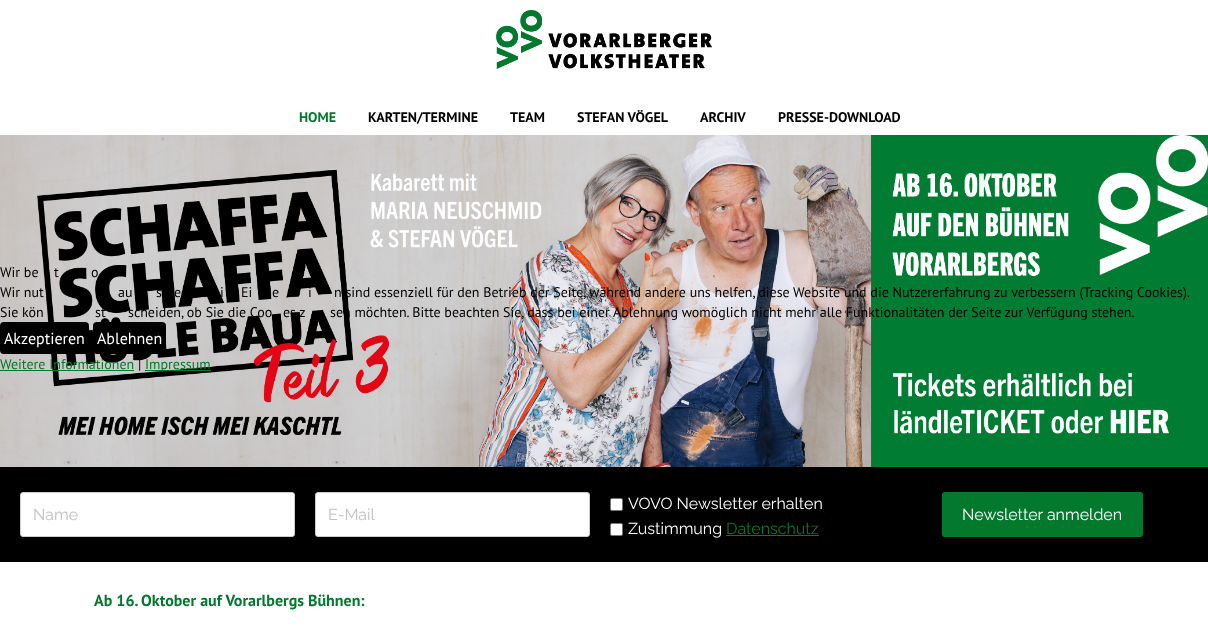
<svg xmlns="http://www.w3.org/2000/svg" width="1208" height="635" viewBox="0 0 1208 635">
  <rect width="100%" height="100%" fill="rgb(255,255,255)"/>
  <image x="496" y="10" width="216" height="59" href="pic1.png"/>
  <text x="299" y="122" font-family="PT Sans" font-size="14" font-weight="bold" fill="rgb(3,121,45)">HOME</text>
  <g font-family="PT Sans" font-size="14" font-weight="bold" fill="rgb(0,0,0)">
    <text x="368" y="122">KARTEN/TERMINE</text>
    <text x="510" y="122">TEAM</text>
    <text x="577" y="122">STEFAN VÖGEL</text>
    <text x="700" y="122">ARCHIV</text>
    <text x="778" y="122">PRESSE-DOWNLOAD</text>
  </g>
  <image x="0" y="135" width="1208" height="332" href="pic2.png"/>
  <g font-family="PT Sans" font-size="14" fill="rgb(0,0,0)">
    <text x="0" y="277">Wir be</text>
    <text x="54" y="277">t</text>
    <text x="91" y="277">o</text>
    <text x="0" y="297">Wir nut</text>
    <text x="118" y="297">au</text>
    <text x="156" y="297">s</text>
    <text x="174" y="297">e</text>
    <text x="220" y="297">i</text>
    <text x="241" y="297">Ei</text>
    <text x="272" y="297">e</text>
    <text x="308" y="297">i</text>
    <text x="334" y="297">n sind essenziell für den Betrieb der Seite, während andere uns helfen, diese Website und die Nutzererfahrung zu verbessern (Tracking Cookies).</text>
    <text x="0" y="317">Sie kön</text>
    <text x="95" y="317">st</text>
    <text x="128" y="317">scheiden, ob Sie die Coo</text>
    <text x="283" y="317">es z</text>
    <text x="330" y="317">sen möchten. Bitte beachten Sie, dass bei einer Ablehnung womöglich nicht mehr alle Funktionalitäten der Seite zur Verfügung stehen.</text>
  </g>
  <rect x="0" y="322" width="89" height="32" rx="4" fill="rgb(0,0,0)"/>
  <text x="4" y="344" font-family="PT Sans" font-size="16" fill="rgb(255,255,255)">Akzeptieren</text>
  <rect x="93" y="322" width="73" height="32" rx="4" fill="rgb(0,0,0)"/>
  <text x="97" y="344" font-family="PT Sans" font-size="16" fill="rgb(255,255,255)">Ablehnen</text>
  <text x="0" y="369" font-family="PT Sans" font-size="14" fill="rgb(3,121,45)">Weitere Informationen</text>
  <rect x="0" y="370" width="134" height="1" fill="rgb(3,121,45)"/>
  <text x="138" y="369" font-family="PT Sans" font-size="14" fill="rgb(0,0,0)">|</text>
  <rect x="145" y="370" width="66" height="1" fill="rgb(3,121,45)"/>
  <text x="145" y="369" font-family="PT Sans" font-size="14" fill="rgb(3,121,45)">Impressum</text>
  <rect x="0" y="467" width="1208" height="95" fill="rgb(0,0,0)"/>
  <rect x="20.5" y="492.5" width="274" height="44" rx="2.5" fill="rgb(255,255,255)" stroke="rgb(204,204,204)"/>
  <text x="33" y="520" font-family="Raleway" font-size="16" font-weight="100" fill="rgb(194,194,194)">Name</text>
  <rect x="315.5" y="492.5" width="274" height="44" rx="2.5" fill="rgb(255,255,255)" stroke="rgb(204,204,204)"/>
  <text x="328" y="520" font-family="Raleway" font-size="16" font-weight="100" fill="rgb(194,194,194)">E-Mail</text>
  <rect x="610.5" y="498.5" width="12" height="12" rx="1.5" fill="rgb(255,255,255)" stroke="rgb(118,118,118)"/>
  <text x="628" y="509" font-family="Raleway" font-size="16" font-weight="100" fill="rgb(255,255,255)">VOVO Newsletter erhalten</text>
  <rect x="610.5" y="523.5" width="12" height="12" rx="1.5" fill="rgb(255,255,255)" stroke="rgb(118,118,118)"/>
  <text x="628" y="534" font-family="Raleway" font-size="16" font-weight="100" fill="rgb(255,255,255)">Zustimmung</text>
  <text x="726" y="534" font-family="Raleway" font-size="16" font-weight="100" fill="rgb(3,121,45)">Datenschutz</text>
  <rect x="726" y="535" width="93" height="1" fill="rgb(3,121,45)"/>
  <rect x="942" y="492" width="201" height="45" rx="3" fill="rgb(3,121,45)"/>
  <text x="962" y="520" font-family="Raleway" font-size="16" font-weight="100" fill="rgb(255,255,255)">Newsletter anmelden</text>
  <text x="94" y="606" font-family="PT Sans" font-size="16" font-weight="bold" fill="rgb(3,121,45)">Ab 16. Oktober auf Vorarlbergs Bühnen:</text>
</svg>
